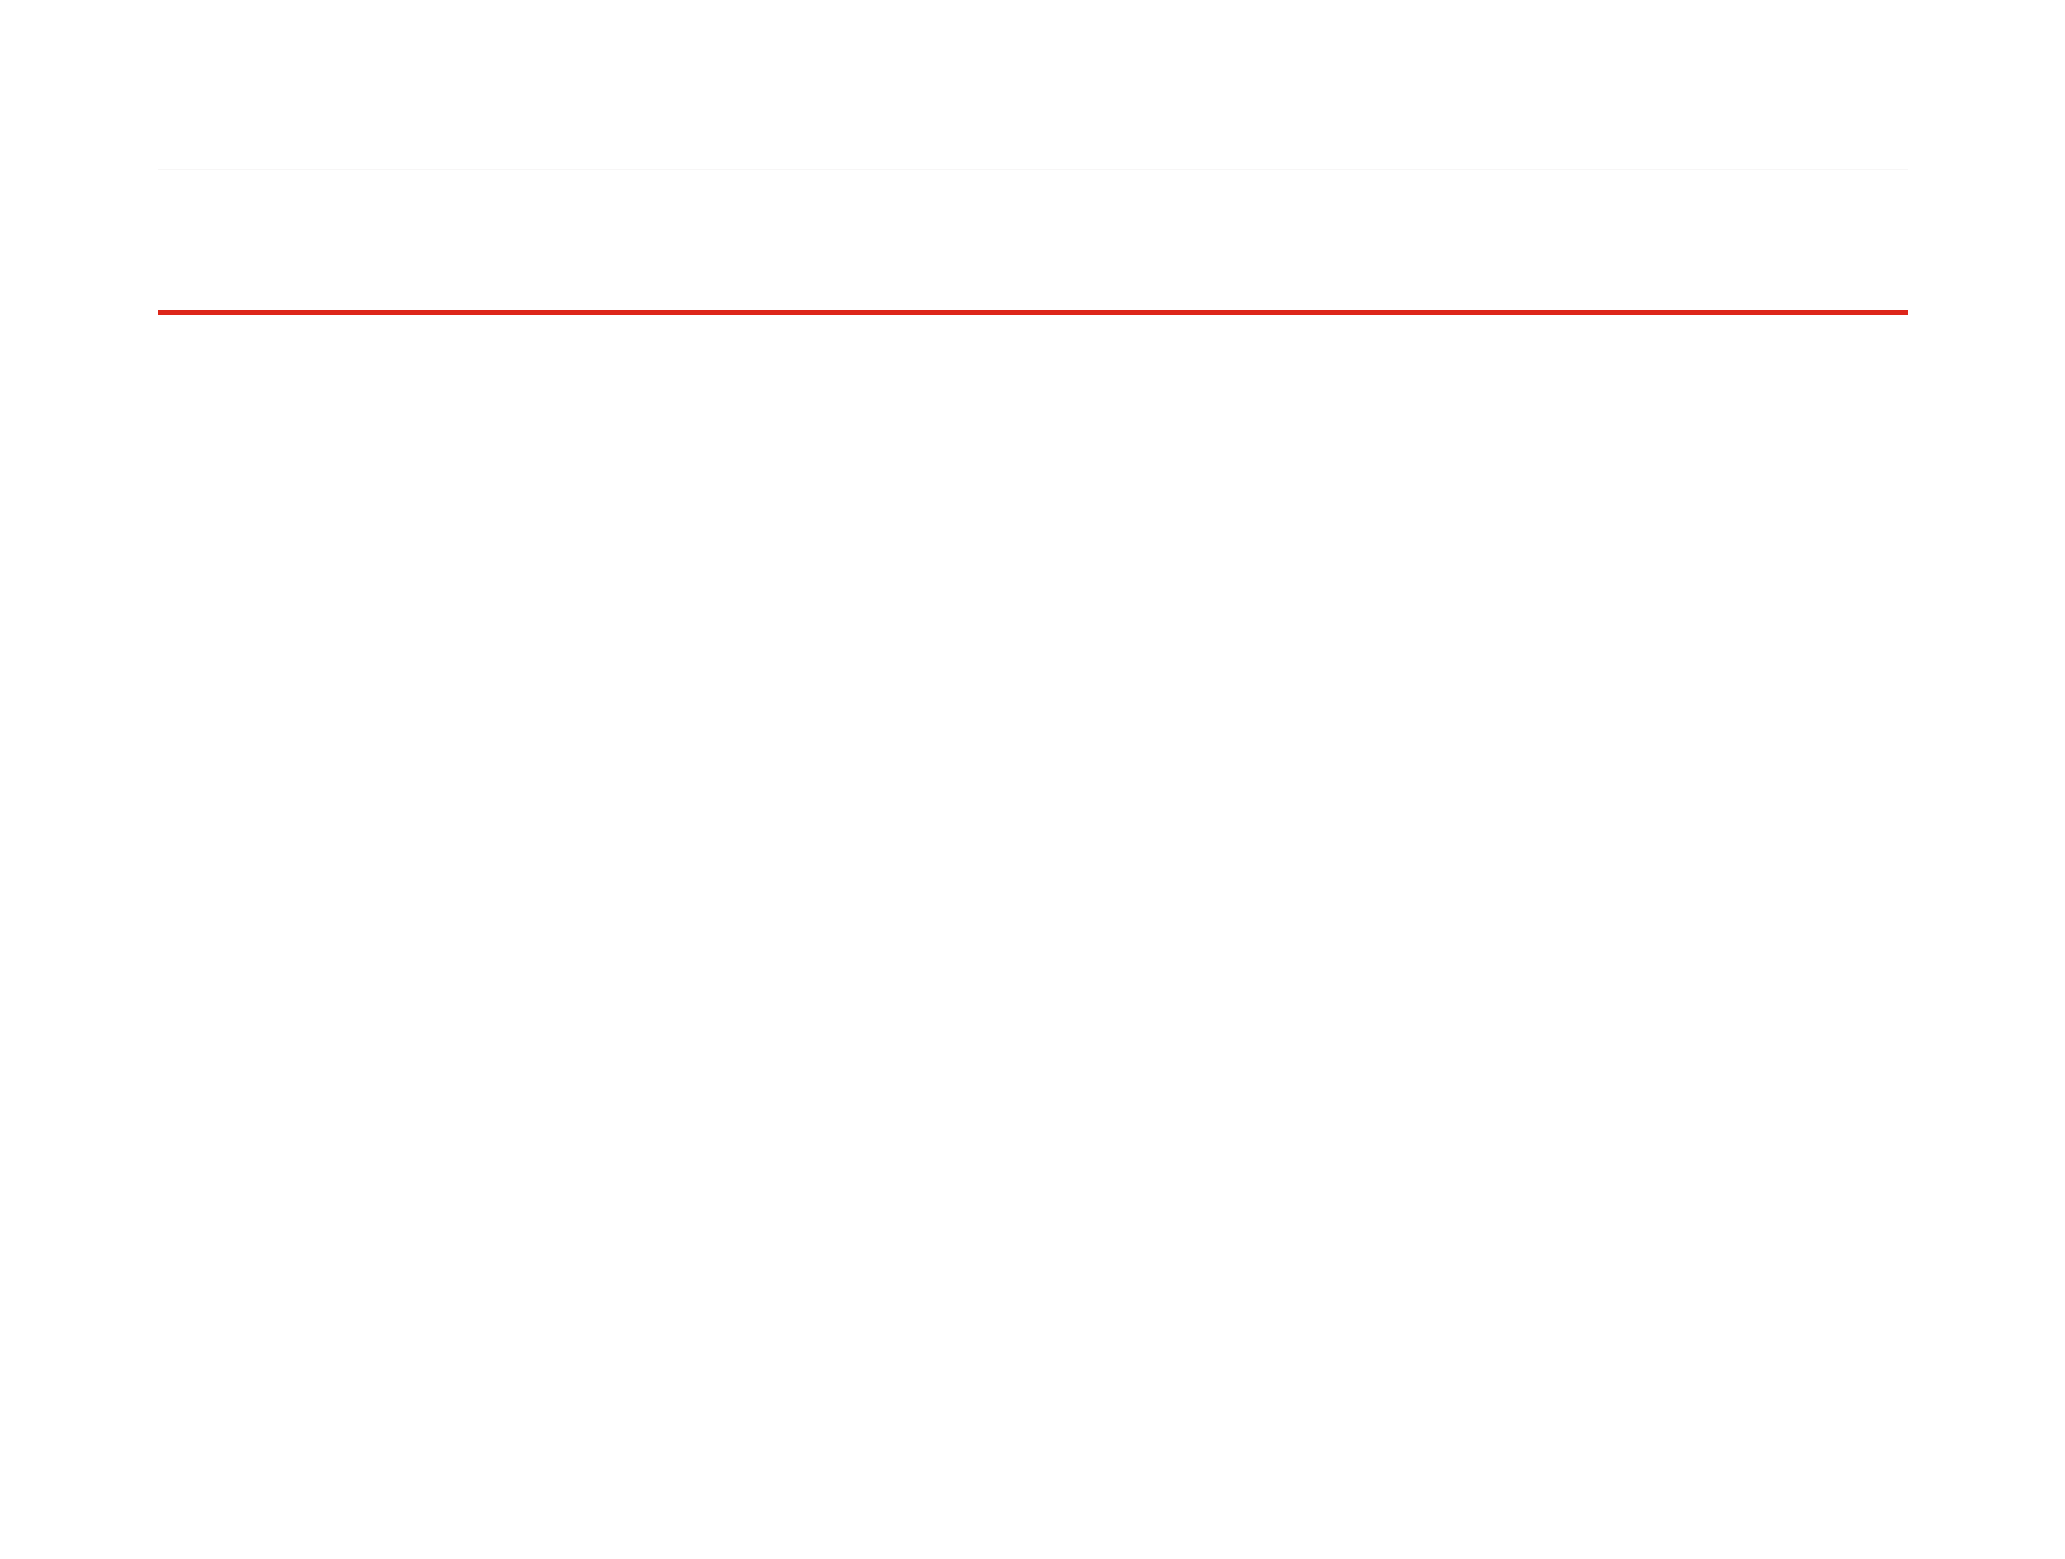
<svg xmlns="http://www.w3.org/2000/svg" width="2065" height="1559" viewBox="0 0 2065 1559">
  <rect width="100%" height="100%" fill="rgb(255,255,255)"/>
  <rect x="158" y="169" width="1750" height="1" fill="rgb(247,246,246)"/>
  <rect x="158" y="310" width="1750" height="5" fill="rgb(221,38,26)"/>
</svg>
